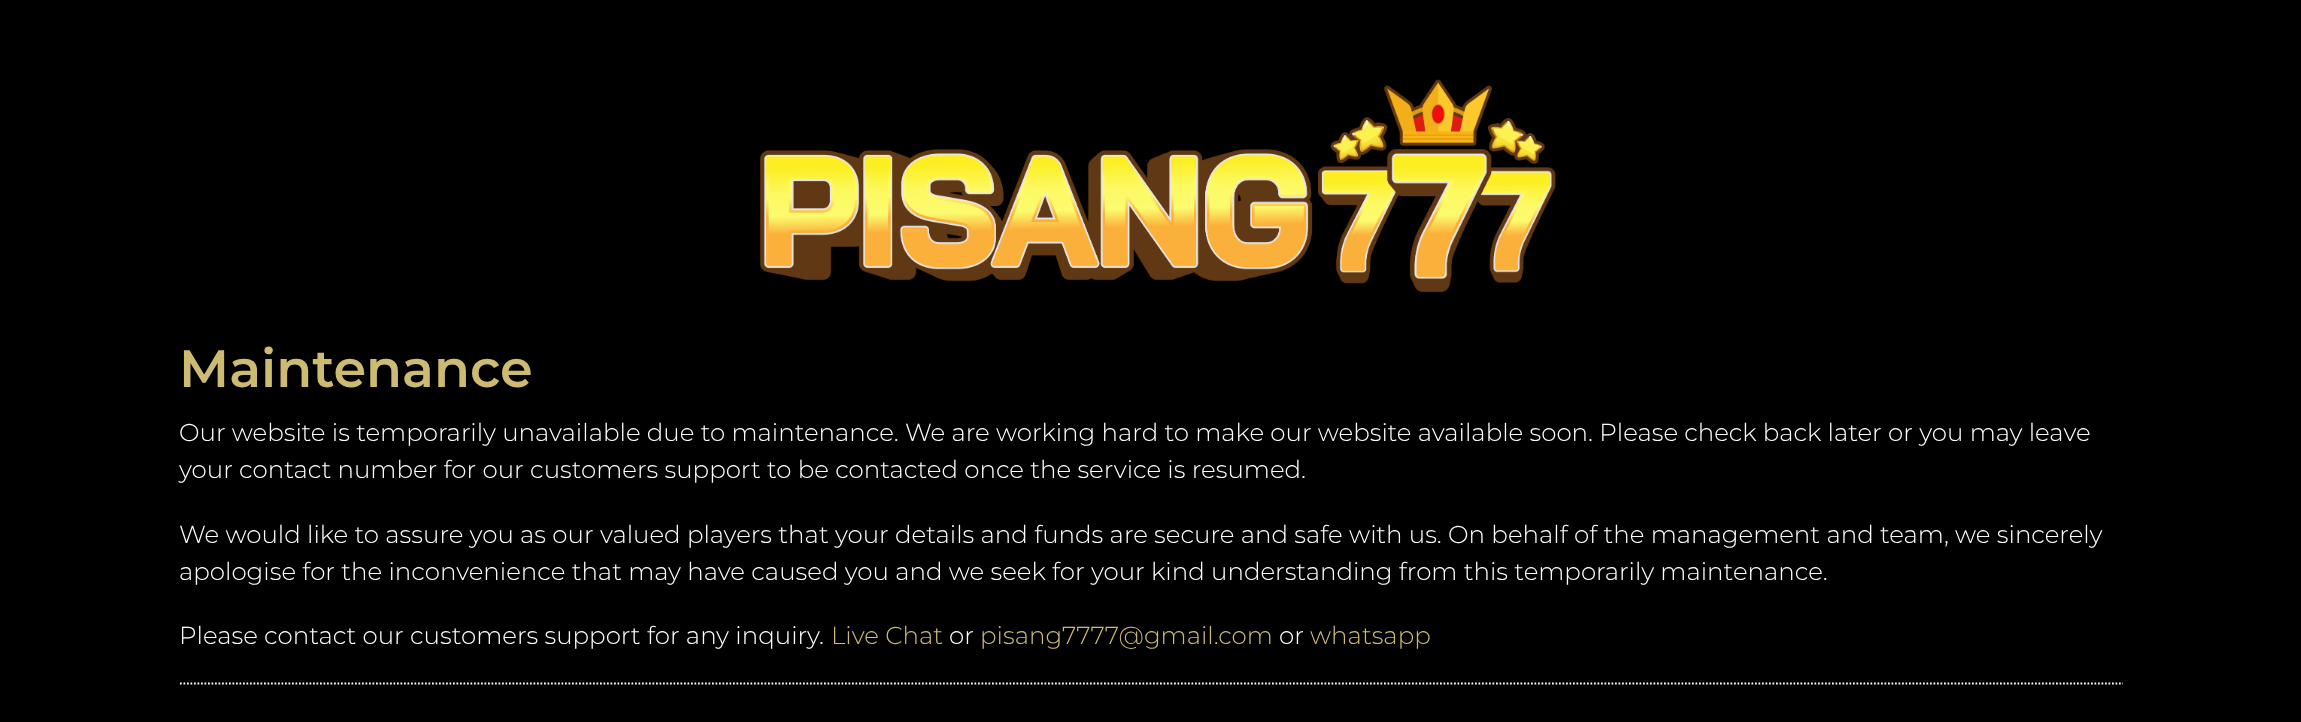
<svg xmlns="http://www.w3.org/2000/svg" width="2301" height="722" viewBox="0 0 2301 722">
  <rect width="100%" height="100%" fill="rgb(0,0,0)"/>
  <image x="760" y="79" width="796" height="213" href="pic1.png"/>
  <text x="179" y="387" font-family="Montserrat" font-size="52.5" font-weight="600" fill="rgb(205,187,113)">Maintenance</text>
  <g font-family="Montserrat" font-size="24.5" font-weight="300" fill="rgb(255,255,255)">
    <text>
      <tspan x="179" y="441">Our website is temporarily unavailable due to maintenance. We are working hard to make our website available soon. Please check back later or you may leave</tspan>
      <tspan x="179" y="478">your contact number for our customers support to be contacted once the service is resumed.</tspan>
    </text>
    <text>
      <tspan x="179" y="543">We would like to assure you as our valued players that your details and funds are secure and safe with us. On behalf of the management and team, we sincerely</tspan>
      <tspan x="179" y="580">apologise for the inconvenience that may have caused you and we seek for your kind understanding from this temporarily maintenance.</tspan>
    </text>
    <text x="179" y="644">Please contact our customers support for any inquiry.</text>
  </g>
  <text x="831" y="644" font-family="Montserrat" font-size="24.5" font-weight="300" fill="rgb(205,187,113)">Live Chat</text>
  <text x="949" y="644" font-family="Montserrat" font-size="24.5" font-weight="300" fill="rgb(255,255,255)">or</text>
  <text x="980" y="644" font-family="Montserrat" font-size="24.5" font-weight="300" fill="rgb(205,187,113)">pisang7777@gmail.com</text>
  <text x="1279" y="644" font-family="Montserrat" font-size="24.5" font-weight="300" fill="rgb(255,255,255)">or</text>
  <text x="1310" y="644" font-family="Montserrat" font-size="24.5" font-weight="300" fill="rgb(205,187,113)">whatsapp</text>
  <path d="M180 683.5H2123" fill="none" stroke="rgb(255,255,255)" stroke-width="1.8" stroke-dasharray="1.75 1.75"/>
</svg>
